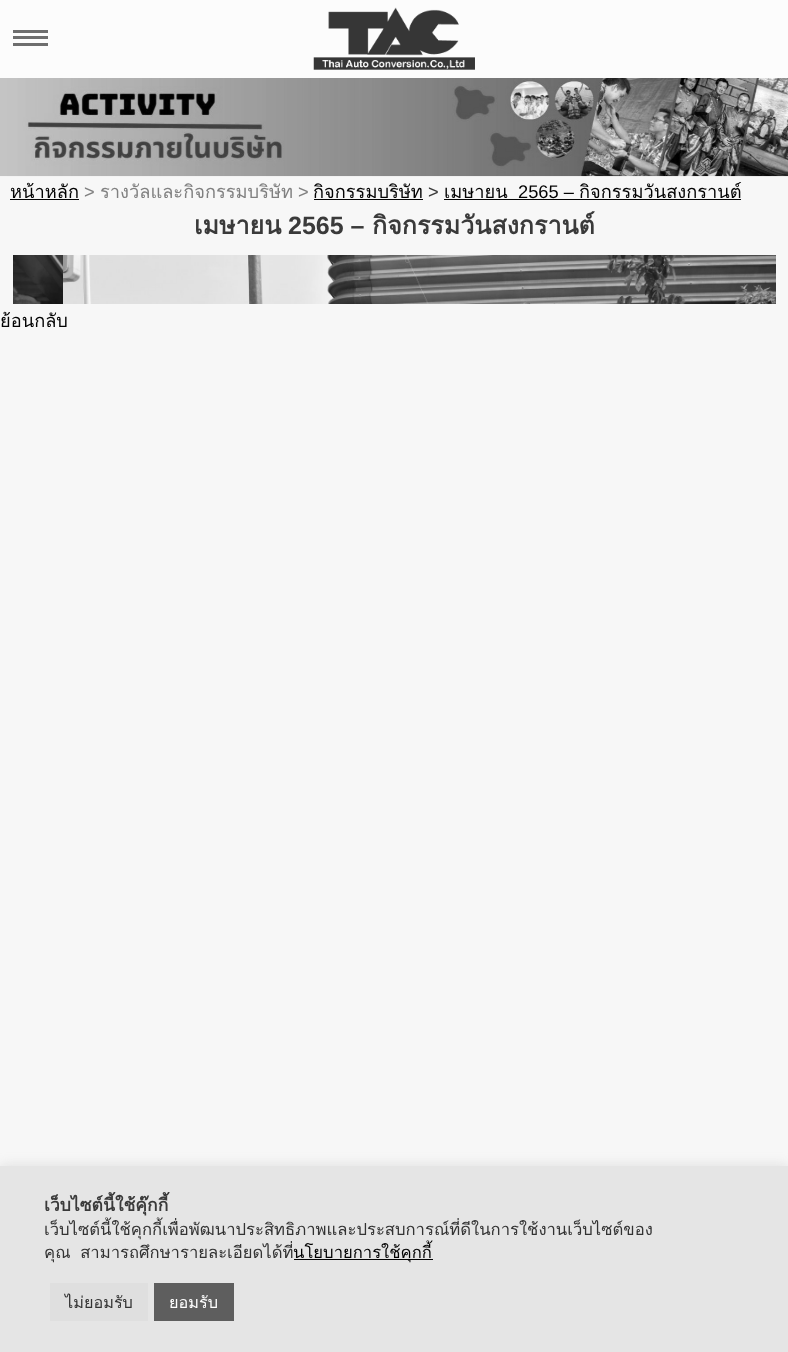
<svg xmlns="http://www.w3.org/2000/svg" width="788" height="1352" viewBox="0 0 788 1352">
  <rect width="100%" height="100%" fill="rgb(247,247,247)"/>
  <rect x="0" y="0" width="788" height="78" fill="rgb(252,252,252)"/>
  <rect x="13" y="36" width="35" height="3" fill="rgb(110,110,110)"/>
  <rect x="13" y="30" width="35" height="3" fill="rgb(110,110,110)"/>
  <rect x="13" y="43" width="35" height="3" fill="rgb(110,110,110)"/>
  <image x="313" y="7" width="162" height="63" href="pic1.png"/>
  <image x="0" y="78" width="788" height="99" href="pic2.png"/>
  <text x="10" y="198" font-family="Loma" font-size="18.25" fill="rgb(3,3,3)">หน้าหลัก</text>
  <rect x="10" y="199" width="69" height="1" fill="rgb(3,3,3)"/>
  <text x="84" y="198" font-family="Liberation Sans" font-size="18.25" fill="rgb(128,128,128)">&gt;</text>
  <text x="100" y="198" font-family="Loma" font-size="18.25" fill="rgb(128,128,128)">รางวัลและกิจกรรมบริษัท</text>
  <text x="298" y="198" font-family="Liberation Sans" font-size="18.25" fill="rgb(128,128,128)">&gt;</text>
  <text x="313" y="198" font-family="Loma" font-size="18.25" fill="rgb(3,3,3)">กิจกรรมบริษัท</text>
  <rect x="314" y="199" width="109" height="1" fill="rgb(3,3,3)"/>
  <text x="428" y="198" font-family="Liberation Sans" font-size="18.25" fill="rgb(58,58,58)">&gt;</text>
  <text x="444" y="198" font-family="Loma" font-size="18.25" fill="rgb(3,3,3)">เมษายน</text>
  <rect x="444" y="199" width="297" height="1" fill="rgb(3,3,3)"/>
  <text x="518" y="198" font-family="Liberation Sans" font-size="18.25" fill="rgb(3,3,3)">2565 –</text>
  <text x="579" y="198" font-family="Loma" font-size="18.25" fill="rgb(3,3,3)">กิจกรรมวันสงกรานต์</text>
  <text x="194" y="234" font-family="Loma" font-size="25" font-weight="bold" fill="rgb(58,58,58)">เมษายน</text>
  <text x="288" y="234" font-family="Liberation Sans" font-size="25" font-weight="bold" fill="rgb(58,58,58)">2565 –</text>
  <text x="372" y="234" font-family="Loma" font-size="25" font-weight="bold" fill="rgb(58,58,58)">กิจกรรมวันสงกรานต์</text>
  <image x="13" y="255" width="50" height="49" href="pic3.png"/>
  <image x="63" y="255" width="713" height="49" href="pic4.png"/>
  <text x="0" y="327" font-family="Loma" font-size="18.25" fill="rgb(3,3,3)">ย้อนกลับ</text>
  <rect x="0" y="1165" width="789" height="186" fill="rgba(171,171,171,0.3)" filter="blur(6px)"/>
  <rect x="0" y="1166" width="788" height="186" fill="rgb(229,229,229)"/>
  <text x="44" y="1211" font-family="Loma" font-size="17.5" font-weight="bold" fill="rgb(58,58,58)">เว็บไซต์นี้ใช้คุ๊กกี้</text>
  <g font-family="Loma" font-size="16.65" fill="rgb(51,51,51)">
    <text>
      <tspan x="44" y="1235">เว็บไซต์นี้ใช้คุกกี้เพื่อพัฒนาประสิทธิภาพและประสบการณ์ที่ดีในการใช้งานเว็บไซต์ของ</tspan>
      <tspan x="44" y="1258" word-spacing="4">คุณ สามารถศึกษารายละเอียดได้ที่</tspan>
    </text>
  </g>
  <rect x="294" y="1259" width="139" height="1" fill="rgb(3,3,3)"/>
  <text x="293" y="1258" font-family="Loma" font-size="16.65" fill="rgb(3,3,3)">นโยบายการใช้คุกกี้</text>
  <rect x="50" y="1283" width="98" height="38" fill="rgb(223,223,223)"/>
  <text x="65" y="1308" font-family="Loma" font-size="16.25" fill="rgb(51,51,51)">ไม่ยอมรับ</text>
  <rect x="154" y="1283" width="80" height="38" fill="rgb(94,94,94)"/>
  <text x="169" y="1308" font-family="Loma" font-size="16.25" fill="rgb(255,255,255)">ยอมรับ</text>
</svg>
